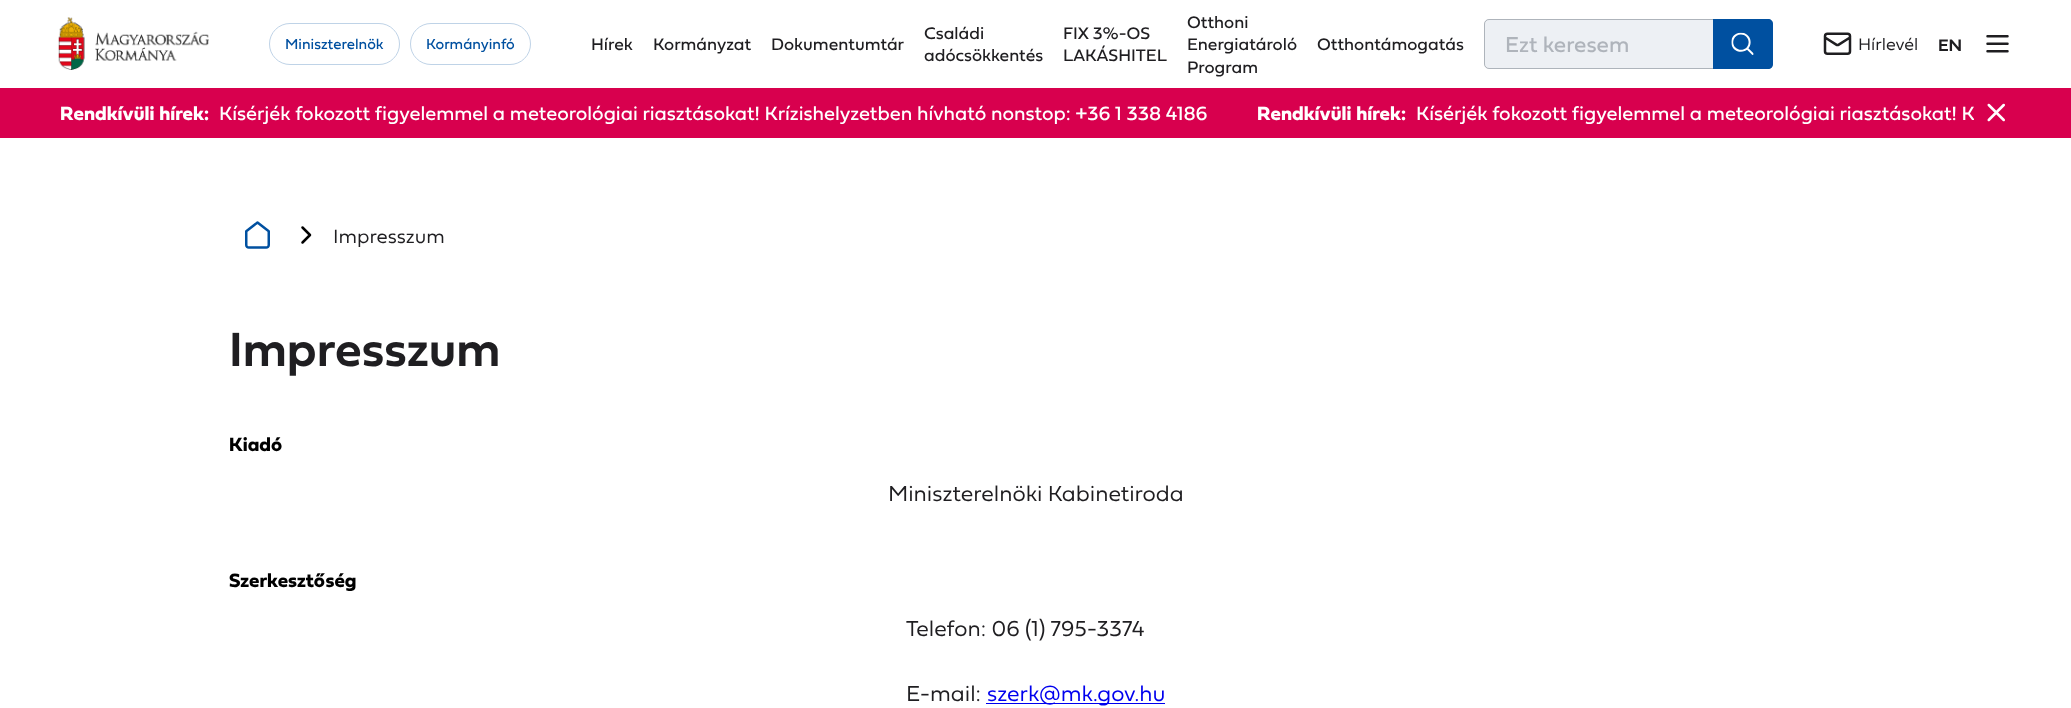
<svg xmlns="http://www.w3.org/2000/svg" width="2071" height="708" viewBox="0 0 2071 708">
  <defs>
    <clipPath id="clip1"><rect x="60" y="98" width="1914" height="30"/></clipPath>
  </defs>
  <rect width="100%" height="100%" fill="rgb(255,255,255)"/>
  <image x="58" y="17" width="151" height="53" href="pic1.png"/>
  <rect x="269.5" y="23.5" width="130" height="41" rx="20.5" fill="none" stroke="rgb(191,211,231)"/>
  <text x="285" y="49" font-family="'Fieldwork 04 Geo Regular'" font-size="15" fill="rgb(0,80,160)">Miniszterelnök</text>
  <rect x="410.5" y="23.5" width="120" height="41" rx="20.5" fill="none" stroke="rgb(191,211,231)"/>
  <text x="426" y="49" font-family="'Fieldwork 04 Geo Regular'" font-size="15" fill="rgb(0,80,160)">Kormányinfó</text>
  <g font-family="'Fieldwork 04 Geo Regular'" font-size="17.5" fill="rgb(31,30,33)">
    <text x="591" y="50">Hírek</text>
    <text x="653" y="50">Kormányzat</text>
    <text x="771" y="50">Dokumentumtár</text>
    <text>
      <tspan x="924" y="39">Családi</tspan>
      <tspan x="924" y="61">adócsökkentés</tspan>
    </text>
    <text>
      <tspan x="1063" y="39">FIX 3%-OS</tspan>
      <tspan x="1063" y="61">LAKÁSHITEL</tspan>
    </text>
    <text>
      <tspan x="1187" y="28">Otthoni</tspan>
      <tspan x="1187" y="50">Energiatároló</tspan>
      <tspan x="1187" y="73">Program</tspan>
    </text>
    <text x="1317" y="50">Otthontámogatás</text>
  </g>
  <rect x="1484" y="19" width="289" height="50" rx="5" fill="rgb(237,240,244)"/>
  <rect x="1484.5" y="19.5" width="288" height="49" rx="4.5" fill="none" stroke="rgba(112,119,129,0.5)"/>
  <text x="1505" y="52" font-family="'Fieldwork 04 Geo Regular'" font-size="22.5" fill="rgb(175,180,187)">Ezt keresem</text>
  <path d="M1713 19H1768C1771 19 1773 21 1773 24V64C1773 67 1771 69 1768 69H1713Z" fill="rgb(0,80,160)"/>
  <image x="1731" y="32" width="23" height="23" href="pic2.png"/>
  <image x="1823" y="32" width="29" height="23" href="pic3.png"/>
  <text x="1858" y="50" font-family="'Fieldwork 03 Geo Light'" font-size="17.5" font-weight="300" fill="rgb(31,30,33)">Hírlevél</text>
  <text x="1938" y="51" font-family="'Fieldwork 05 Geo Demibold'" font-size="17.5" font-weight="600" fill="rgb(31,30,33)">EN</text>
  <image x="1986" y="35" width="23" height="18" href="pic4.png"/>
  <rect x="0" y="88" width="2071" height="50" fill="rgb(216,0,78)"/>
  <text x="60" y="120" font-family="'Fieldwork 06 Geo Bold'" font-size="20" font-weight="bold" fill="rgb(255,255,255)">Rendkívüli hírek:</text>
  <text x="219" y="120" font-family="'Fieldwork 04 Geo Regular'" font-size="20" fill="rgb(255,255,255)">Kísérjék fokozott figyelemmel a meteorológiai riasztásokat! Krízishelyzetben hívható nonstop: +36 1 338 4186</text>
  <text x="1257" y="120" font-family="'Fieldwork 06 Geo Bold'" font-size="20" font-weight="bold" fill="rgb(255,255,255)">Rendkívüli hírek:</text>
  <g clip-path="url(#clip1)">
    <text x="1416" y="120" font-family="'Fieldwork 04 Geo Regular'" font-size="20" fill="rgb(255,255,255)">Kísérjék fokozott figyelemmel a meteorológiai riasztásokat! K</text>
  </g>
  <image x="1987" y="103" width="18" height="19" href="pic5.png"/>
  <image x="245" y="221" width="25" height="28" href="pic6.png"/>
  <image x="301" y="226" width="11" height="18" href="pic7.png"/>
  <text x="333" y="243" font-family="'Fieldwork 03 Geo Light'" font-size="20" font-weight="300" fill="rgb(31,30,33)">Impresszum</text>
  <text x="229" y="366" font-family="'Fieldwork 05 Geo Demibold'" font-size="50" font-weight="600" fill="rgb(31,30,33)">Impresszum</text>
  <text x="229" y="451" font-family="'Fieldwork 06 Geo Bold'" font-size="20" font-weight="bold" fill="rgb(0,0,0)">Kiadó</text>
  <text x="888" y="501" font-family="'Fieldwork 03 Geo Light'" font-size="22.5" font-weight="300" fill="rgb(31,30,33)">Miniszterelnöki Kabinetiroda</text>
  <text x="229" y="587" font-family="'Fieldwork 06 Geo Bold'" font-size="20" font-weight="bold" fill="rgb(0,0,0)">Szerkesztőség</text>
  <g font-family="'Fieldwork 03 Geo Light'" font-size="22.5" font-weight="300" fill="rgb(31,30,33)">
    <text x="906" y="636">Telefon: 06 (1) 795-3374</text>
    <text x="906" y="701">E-mail:</text>
  </g>
  <rect x="986" y="703" width="179" height="1" fill="rgb(0,0,238)"/>
  <text x="987" y="701" font-family="'Fieldwork 03 Geo Light'" font-size="22.5" font-weight="300" fill="rgb(0,0,238)">szerk@mk.gov.hu</text>
</svg>
